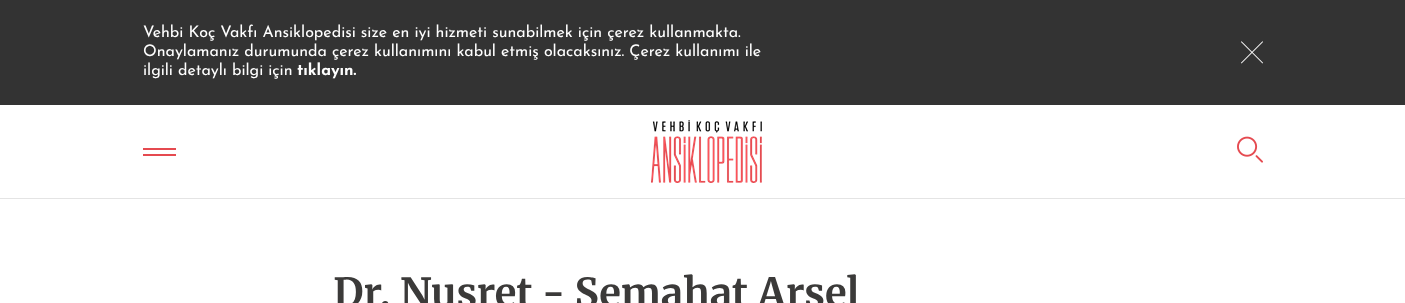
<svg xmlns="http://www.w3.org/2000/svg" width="1405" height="303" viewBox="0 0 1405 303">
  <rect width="100%" height="100%" fill="rgb(255,255,255)"/>
  <rect x="0" y="198" width="1405" height="1" fill="rgb(228,228,228)"/>
  <rect x="0" y="0" width="1405" height="105" fill="rgb(51,51,51)"/>
  <g font-family="Josefin Sans" font-size="16" fill="rgb(255,255,255)">
    <text>
      <tspan x="143" y="37">Vehbi Koç Vakfı Ansiklopedisi size en iyi hizmeti sunabilmek için çerez kullanmakta.</tspan>
      <tspan x="143" y="56">Onaylamanız durumunda çerez kullanımını kabul etmiş olacaksınız. Çerez kullanımı ile</tspan>
      <tspan x="143" y="75">ilgili detaylı bilgi için</tspan>
    </text>
  </g>
  <text x="297" y="75" font-family="Josefin Sans" font-size="16" font-weight="bold" fill="rgb(255,255,255)">tıklayın.</text>
  <image x="1241" y="41" width="22" height="23" href="pic1.png"/>
  <rect x="143" y="148" width="33" height="2" fill="rgb(229,74,80)"/>
  <rect x="143" y="154" width="33" height="2" fill="rgb(229,74,80)"/>
  <image x="651" y="120" width="111" height="63" href="pic2.png"/>
  <image x="1237" y="136" width="26" height="27" href="pic3.png"/>
  <text x="333" y="307" font-family="Merriweather" font-size="40" font-weight="bold" fill="rgb(59,58,57)">Dr. Nusret - Semahat Arsel</text>
</svg>
